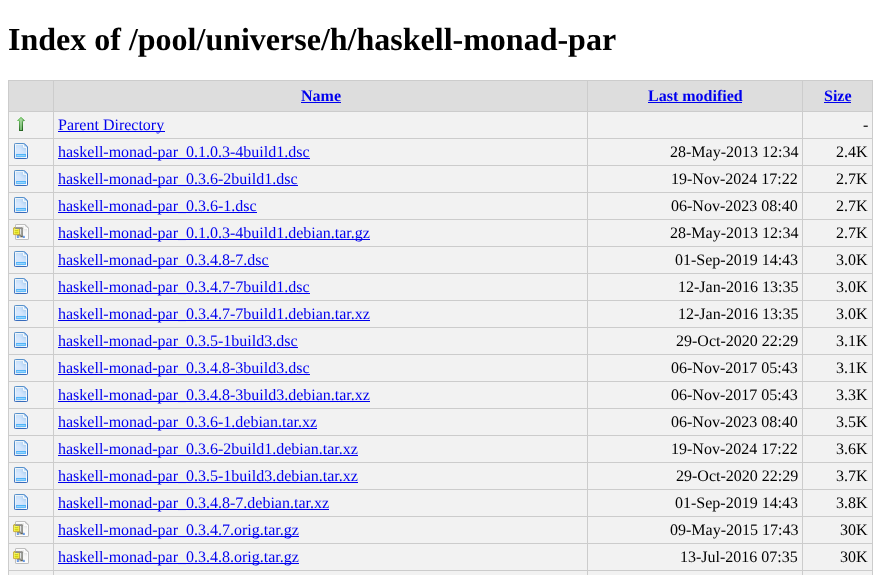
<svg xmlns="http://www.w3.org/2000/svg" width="881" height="575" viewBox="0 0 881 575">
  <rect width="100%" height="100%" fill="rgb(255,255,255)"/>
  <text x="8" y="50" font-family="Liberation Serif" font-size="32" font-weight="bold" fill="rgb(0,0,0)">Index of /pool/universe/h/haskell-monad-par</text>
  <rect x="9" y="81" width="44" height="30" fill="rgb(221,221,221)"/>
  <rect x="802" y="80" width="71" height="1" fill="rgb(204,204,204)"/>
  <rect x="802" y="111" width="71" height="1" fill="rgb(204,204,204)"/>
  <rect x="9" y="112" width="863" height="26" fill="rgb(242,242,242)"/>
  <rect x="802" y="138" width="71" height="1" fill="rgb(204,204,204)"/>
  <rect x="9" y="139" width="863" height="26" fill="rgb(242,242,242)"/>
  <rect x="802" y="165" width="71" height="1" fill="rgb(204,204,204)"/>
  <rect x="9" y="166" width="863" height="26" fill="rgb(242,242,242)"/>
  <rect x="802" y="192" width="71" height="1" fill="rgb(204,204,204)"/>
  <rect x="9" y="193" width="863" height="26" fill="rgb(242,242,242)"/>
  <rect x="802" y="219" width="71" height="1" fill="rgb(204,204,204)"/>
  <rect x="9" y="220" width="863" height="26" fill="rgb(242,242,242)"/>
  <rect x="802" y="246" width="71" height="1" fill="rgb(204,204,204)"/>
  <rect x="9" y="247" width="863" height="26" fill="rgb(242,242,242)"/>
  <rect x="802" y="273" width="71" height="1" fill="rgb(204,204,204)"/>
  <rect x="9" y="274" width="863" height="26" fill="rgb(242,242,242)"/>
  <rect x="802" y="300" width="71" height="1" fill="rgb(204,204,204)"/>
  <rect x="9" y="301" width="863" height="26" fill="rgb(242,242,242)"/>
  <rect x="802" y="327" width="71" height="1" fill="rgb(204,204,204)"/>
  <rect x="9" y="328" width="863" height="26" fill="rgb(242,242,242)"/>
  <rect x="802" y="354" width="71" height="1" fill="rgb(204,204,204)"/>
  <rect x="9" y="355" width="863" height="26" fill="rgb(242,242,242)"/>
  <rect x="802" y="381" width="71" height="1" fill="rgb(204,204,204)"/>
  <rect x="9" y="382" width="863" height="26" fill="rgb(242,242,242)"/>
  <rect x="802" y="408" width="71" height="1" fill="rgb(204,204,204)"/>
  <rect x="9" y="409" width="863" height="26" fill="rgb(242,242,242)"/>
  <rect x="802" y="435" width="71" height="1" fill="rgb(204,204,204)"/>
  <rect x="9" y="436" width="863" height="26" fill="rgb(242,242,242)"/>
  <rect x="802" y="462" width="71" height="1" fill="rgb(204,204,204)"/>
  <rect x="9" y="463" width="863" height="26" fill="rgb(242,242,242)"/>
  <rect x="802" y="489" width="71" height="1" fill="rgb(204,204,204)"/>
  <rect x="9" y="490" width="863" height="26" fill="rgb(242,242,242)"/>
  <rect x="802" y="516" width="71" height="1" fill="rgb(204,204,204)"/>
  <rect x="9" y="517" width="863" height="26" fill="rgb(242,242,242)"/>
  <rect x="802" y="543" width="71" height="1" fill="rgb(204,204,204)"/>
  <rect x="9" y="544" width="863" height="26" fill="rgb(242,242,242)"/>
  <rect x="802" y="570" width="71" height="1" fill="rgb(204,204,204)"/>
  <rect x="9" y="571" width="864" height="4" fill="rgb(242,242,242)"/>
  <rect x="802" y="570" width="1" height="5" fill="rgb(204,204,204)"/>
  <rect x="587" y="570" width="216" height="1" fill="rgb(204,204,204)"/>
  <rect x="802" y="543" width="1" height="28" fill="rgb(204,204,204)"/>
  <rect x="587" y="543" width="216" height="1" fill="rgb(204,204,204)"/>
  <rect x="802" y="516" width="1" height="28" fill="rgb(204,204,204)"/>
  <rect x="587" y="516" width="216" height="1" fill="rgb(204,204,204)"/>
  <rect x="802" y="489" width="1" height="28" fill="rgb(204,204,204)"/>
  <rect x="587" y="489" width="216" height="1" fill="rgb(204,204,204)"/>
  <rect x="802" y="462" width="1" height="28" fill="rgb(204,204,204)"/>
  <rect x="587" y="462" width="216" height="1" fill="rgb(204,204,204)"/>
  <rect x="802" y="435" width="1" height="28" fill="rgb(204,204,204)"/>
  <rect x="587" y="435" width="216" height="1" fill="rgb(204,204,204)"/>
  <rect x="802" y="408" width="1" height="28" fill="rgb(204,204,204)"/>
  <rect x="587" y="408" width="216" height="1" fill="rgb(204,204,204)"/>
  <rect x="802" y="381" width="1" height="28" fill="rgb(204,204,204)"/>
  <rect x="587" y="381" width="216" height="1" fill="rgb(204,204,204)"/>
  <rect x="802" y="354" width="1" height="28" fill="rgb(204,204,204)"/>
  <rect x="587" y="354" width="216" height="1" fill="rgb(204,204,204)"/>
  <rect x="802" y="327" width="1" height="28" fill="rgb(204,204,204)"/>
  <rect x="587" y="327" width="216" height="1" fill="rgb(204,204,204)"/>
  <rect x="802" y="300" width="1" height="28" fill="rgb(204,204,204)"/>
  <rect x="587" y="300" width="216" height="1" fill="rgb(204,204,204)"/>
  <rect x="802" y="273" width="1" height="28" fill="rgb(204,204,204)"/>
  <rect x="587" y="273" width="216" height="1" fill="rgb(204,204,204)"/>
  <rect x="802" y="246" width="1" height="28" fill="rgb(204,204,204)"/>
  <rect x="587" y="246" width="216" height="1" fill="rgb(204,204,204)"/>
  <rect x="802" y="219" width="1" height="28" fill="rgb(204,204,204)"/>
  <rect x="587" y="219" width="216" height="1" fill="rgb(204,204,204)"/>
  <rect x="802" y="192" width="1" height="28" fill="rgb(204,204,204)"/>
  <rect x="587" y="192" width="216" height="1" fill="rgb(204,204,204)"/>
  <rect x="802" y="165" width="1" height="28" fill="rgb(204,204,204)"/>
  <rect x="587" y="165" width="216" height="1" fill="rgb(204,204,204)"/>
  <rect x="802" y="138" width="1" height="28" fill="rgb(204,204,204)"/>
  <rect x="587" y="138" width="216" height="1" fill="rgb(204,204,204)"/>
  <rect x="802" y="111" width="1" height="28" fill="rgb(204,204,204)"/>
  <rect x="587" y="111" width="216" height="1" fill="rgb(204,204,204)"/>
  <rect x="802" y="80" width="1" height="32" fill="rgb(204,204,204)"/>
  <rect x="587" y="80" width="216" height="1" fill="rgb(204,204,204)"/>
  <rect x="587" y="570" width="1" height="5" fill="rgb(204,204,204)"/>
  <rect x="53" y="570" width="535" height="1" fill="rgb(204,204,204)"/>
  <rect x="587" y="543" width="1" height="28" fill="rgb(204,204,204)"/>
  <rect x="53" y="543" width="535" height="1" fill="rgb(204,204,204)"/>
  <rect x="587" y="516" width="1" height="28" fill="rgb(204,204,204)"/>
  <rect x="53" y="516" width="535" height="1" fill="rgb(204,204,204)"/>
  <rect x="587" y="489" width="1" height="28" fill="rgb(204,204,204)"/>
  <rect x="53" y="489" width="535" height="1" fill="rgb(204,204,204)"/>
  <rect x="587" y="462" width="1" height="28" fill="rgb(204,204,204)"/>
  <rect x="53" y="462" width="535" height="1" fill="rgb(204,204,204)"/>
  <rect x="587" y="435" width="1" height="28" fill="rgb(204,204,204)"/>
  <rect x="53" y="435" width="535" height="1" fill="rgb(204,204,204)"/>
  <rect x="587" y="408" width="1" height="28" fill="rgb(204,204,204)"/>
  <rect x="53" y="408" width="535" height="1" fill="rgb(204,204,204)"/>
  <rect x="587" y="381" width="1" height="28" fill="rgb(204,204,204)"/>
  <rect x="53" y="381" width="535" height="1" fill="rgb(204,204,204)"/>
  <rect x="587" y="354" width="1" height="28" fill="rgb(204,204,204)"/>
  <rect x="53" y="354" width="535" height="1" fill="rgb(204,204,204)"/>
  <rect x="587" y="327" width="1" height="28" fill="rgb(204,204,204)"/>
  <rect x="53" y="327" width="535" height="1" fill="rgb(204,204,204)"/>
  <rect x="587" y="300" width="1" height="28" fill="rgb(204,204,204)"/>
  <rect x="53" y="300" width="535" height="1" fill="rgb(204,204,204)"/>
  <rect x="587" y="273" width="1" height="28" fill="rgb(204,204,204)"/>
  <rect x="53" y="273" width="535" height="1" fill="rgb(204,204,204)"/>
  <rect x="587" y="246" width="1" height="28" fill="rgb(204,204,204)"/>
  <rect x="53" y="246" width="535" height="1" fill="rgb(204,204,204)"/>
  <rect x="587" y="219" width="1" height="28" fill="rgb(204,204,204)"/>
  <rect x="53" y="219" width="535" height="1" fill="rgb(204,204,204)"/>
  <rect x="587" y="192" width="1" height="28" fill="rgb(204,204,204)"/>
  <rect x="53" y="192" width="535" height="1" fill="rgb(204,204,204)"/>
  <rect x="587" y="165" width="1" height="28" fill="rgb(204,204,204)"/>
  <rect x="53" y="165" width="535" height="1" fill="rgb(204,204,204)"/>
  <rect x="587" y="138" width="1" height="28" fill="rgb(204,204,204)"/>
  <rect x="53" y="138" width="535" height="1" fill="rgb(204,204,204)"/>
  <rect x="587" y="111" width="1" height="28" fill="rgb(204,204,204)"/>
  <rect x="53" y="111" width="535" height="1" fill="rgb(204,204,204)"/>
  <rect x="587" y="80" width="1" height="32" fill="rgb(204,204,204)"/>
  <rect x="53" y="80" width="535" height="1" fill="rgb(204,204,204)"/>
  <rect x="53" y="570" width="1" height="5" fill="rgb(204,204,204)"/>
  <rect x="8" y="570" width="46" height="1" fill="rgb(204,204,204)"/>
  <rect x="53" y="543" width="1" height="28" fill="rgb(204,204,204)"/>
  <rect x="8" y="543" width="46" height="1" fill="rgb(204,204,204)"/>
  <rect x="53" y="516" width="1" height="28" fill="rgb(204,204,204)"/>
  <rect x="8" y="516" width="46" height="1" fill="rgb(204,204,204)"/>
  <rect x="53" y="489" width="1" height="28" fill="rgb(204,204,204)"/>
  <rect x="8" y="489" width="46" height="1" fill="rgb(204,204,204)"/>
  <rect x="53" y="462" width="1" height="28" fill="rgb(204,204,204)"/>
  <rect x="8" y="462" width="46" height="1" fill="rgb(204,204,204)"/>
  <rect x="53" y="435" width="1" height="28" fill="rgb(204,204,204)"/>
  <rect x="8" y="435" width="46" height="1" fill="rgb(204,204,204)"/>
  <rect x="53" y="408" width="1" height="28" fill="rgb(204,204,204)"/>
  <rect x="8" y="408" width="46" height="1" fill="rgb(204,204,204)"/>
  <rect x="53" y="381" width="1" height="28" fill="rgb(204,204,204)"/>
  <rect x="8" y="381" width="46" height="1" fill="rgb(204,204,204)"/>
  <rect x="53" y="354" width="1" height="28" fill="rgb(204,204,204)"/>
  <rect x="8" y="354" width="46" height="1" fill="rgb(204,204,204)"/>
  <rect x="53" y="327" width="1" height="28" fill="rgb(204,204,204)"/>
  <rect x="8" y="327" width="46" height="1" fill="rgb(204,204,204)"/>
  <rect x="53" y="300" width="1" height="28" fill="rgb(204,204,204)"/>
  <rect x="8" y="300" width="46" height="1" fill="rgb(204,204,204)"/>
  <rect x="53" y="273" width="1" height="28" fill="rgb(204,204,204)"/>
  <rect x="8" y="273" width="46" height="1" fill="rgb(204,204,204)"/>
  <rect x="53" y="246" width="1" height="28" fill="rgb(204,204,204)"/>
  <rect x="8" y="246" width="46" height="1" fill="rgb(204,204,204)"/>
  <rect x="53" y="219" width="1" height="28" fill="rgb(204,204,204)"/>
  <rect x="8" y="219" width="46" height="1" fill="rgb(204,204,204)"/>
  <rect x="53" y="192" width="1" height="28" fill="rgb(204,204,204)"/>
  <rect x="8" y="192" width="46" height="1" fill="rgb(204,204,204)"/>
  <rect x="53" y="165" width="1" height="28" fill="rgb(204,204,204)"/>
  <rect x="8" y="165" width="46" height="1" fill="rgb(204,204,204)"/>
  <rect x="53" y="138" width="1" height="28" fill="rgb(204,204,204)"/>
  <rect x="8" y="138" width="46" height="1" fill="rgb(204,204,204)"/>
  <rect x="53" y="111" width="1" height="28" fill="rgb(204,204,204)"/>
  <rect x="8" y="111" width="46" height="1" fill="rgb(204,204,204)"/>
  <rect x="53" y="80" width="1" height="32" fill="rgb(204,204,204)"/>
  <rect x="8" y="80" width="46" height="1" fill="rgb(204,204,204)"/>
  <rect x="8" y="570" width="1" height="5" fill="rgb(204,204,204)"/>
  <rect x="8" y="543" width="1" height="28" fill="rgb(204,204,204)"/>
  <rect x="8" y="516" width="1" height="28" fill="rgb(204,204,204)"/>
  <rect x="8" y="489" width="1" height="28" fill="rgb(204,204,204)"/>
  <rect x="8" y="462" width="1" height="28" fill="rgb(204,204,204)"/>
  <rect x="8" y="435" width="1" height="28" fill="rgb(204,204,204)"/>
  <rect x="8" y="408" width="1" height="28" fill="rgb(204,204,204)"/>
  <rect x="8" y="381" width="1" height="28" fill="rgb(204,204,204)"/>
  <rect x="8" y="354" width="1" height="28" fill="rgb(204,204,204)"/>
  <rect x="8" y="327" width="1" height="28" fill="rgb(204,204,204)"/>
  <rect x="8" y="300" width="1" height="28" fill="rgb(204,204,204)"/>
  <rect x="8" y="273" width="1" height="28" fill="rgb(204,204,204)"/>
  <rect x="8" y="246" width="1" height="28" fill="rgb(204,204,204)"/>
  <rect x="8" y="219" width="1" height="28" fill="rgb(204,204,204)"/>
  <rect x="8" y="192" width="1" height="28" fill="rgb(204,204,204)"/>
  <rect x="8" y="165" width="1" height="28" fill="rgb(204,204,204)"/>
  <rect x="8" y="138" width="1" height="28" fill="rgb(204,204,204)"/>
  <rect x="8" y="111" width="1" height="28" fill="rgb(204,204,204)"/>
  <rect x="8" y="80" width="1" height="32" fill="rgb(204,204,204)"/>
  <rect x="54" y="81" width="533" height="30" fill="rgb(221,221,221)"/>
  <text x="301" y="101" font-family="Liberation Serif" font-size="16" font-weight="bold" fill="rgb(0,0,238)">Name</text>
  <rect x="301" y="102" width="40" height="1" fill="rgb(0,0,238)"/>
  <rect x="588" y="81" width="214" height="30" fill="rgb(221,221,221)"/>
  <text x="648" y="101" font-family="Liberation Serif" font-size="16" font-weight="bold" fill="rgb(0,0,238)">Last modified</text>
  <rect x="648" y="102" width="94" height="1" fill="rgb(0,0,238)"/>
  <rect x="803" y="81" width="69" height="30" fill="rgb(221,221,221)"/>
  <rect x="872" y="570" width="1" height="5" fill="rgb(204,204,204)"/>
  <rect x="872" y="543" width="1" height="28" fill="rgb(204,204,204)"/>
  <rect x="872" y="516" width="1" height="28" fill="rgb(204,204,204)"/>
  <rect x="872" y="489" width="1" height="28" fill="rgb(204,204,204)"/>
  <rect x="872" y="462" width="1" height="28" fill="rgb(204,204,204)"/>
  <rect x="872" y="435" width="1" height="28" fill="rgb(204,204,204)"/>
  <rect x="872" y="408" width="1" height="28" fill="rgb(204,204,204)"/>
  <rect x="872" y="381" width="1" height="28" fill="rgb(204,204,204)"/>
  <rect x="872" y="354" width="1" height="28" fill="rgb(204,204,204)"/>
  <rect x="872" y="327" width="1" height="28" fill="rgb(204,204,204)"/>
  <rect x="872" y="300" width="1" height="28" fill="rgb(204,204,204)"/>
  <rect x="872" y="273" width="1" height="28" fill="rgb(204,204,204)"/>
  <rect x="872" y="246" width="1" height="28" fill="rgb(204,204,204)"/>
  <rect x="872" y="219" width="1" height="28" fill="rgb(204,204,204)"/>
  <rect x="872" y="192" width="1" height="28" fill="rgb(204,204,204)"/>
  <rect x="872" y="165" width="1" height="28" fill="rgb(204,204,204)"/>
  <rect x="872" y="138" width="1" height="28" fill="rgb(204,204,204)"/>
  <rect x="872" y="111" width="1" height="28" fill="rgb(204,204,204)"/>
  <rect x="872" y="80" width="1" height="32" fill="rgb(204,204,204)"/>
  <text x="824" y="101" font-family="Liberation Serif" font-size="16" font-weight="bold" fill="rgb(0,0,238)">Size</text>
  <rect x="824" y="102" width="27" height="1" fill="rgb(0,0,238)"/>
  <image x="17" y="117" width="8" height="14" href="pic1.png"/>
  <rect x="58" y="131" width="107" height="1" fill="rgb(0,0,238)"/>
  <text x="58" y="130" font-family="Liberation Serif" font-size="16" fill="rgb(0,0,238)">Parent Directory</text>
  <text x="863" y="130" font-family="Liberation Serif" font-size="16" fill="rgb(0,0,0)">-</text>
  <image x="14" y="143" width="14" height="16" href="pic2.png"/>
  <rect x="58" y="158" width="252" height="1" fill="rgb(0,0,238)"/>
  <text x="58" y="157" font-family="Liberation Serif" font-size="16" fill="rgb(0,0,238)">haskell-monad-par_0.1.0.3-4build1.dsc</text>
  <g font-family="Liberation Serif" font-size="16" fill="rgb(0,0,0)">
    <text x="670" y="157">28-May-2013 12:34</text>
    <text x="836" y="157">2.4K</text>
  </g>
  <image x="14" y="170" width="14" height="16" href="pic2.png"/>
  <rect x="58" y="185" width="240" height="1" fill="rgb(0,0,238)"/>
  <text x="58" y="184" font-family="Liberation Serif" font-size="16" fill="rgb(0,0,238)">haskell-monad-par_0.3.6-2build1.dsc</text>
  <g font-family="Liberation Serif" font-size="16" fill="rgb(0,0,0)">
    <text x="671" y="184">19-Nov-2024 17:22</text>
    <text x="836" y="184">2.7K</text>
  </g>
  <image x="14" y="197" width="14" height="16" href="pic2.png"/>
  <rect x="58" y="212" width="199" height="1" fill="rgb(0,0,238)"/>
  <text x="58" y="211" font-family="Liberation Serif" font-size="16" fill="rgb(0,0,238)">haskell-monad-par_0.3.6-1.dsc</text>
  <g font-family="Liberation Serif" font-size="16" fill="rgb(0,0,0)">
    <text x="671" y="211">06-Nov-2023 08:40</text>
    <text x="836" y="211">2.7K</text>
  </g>
  <image x="13" y="224" width="16" height="16" href="pic3.png"/>
  <rect x="58" y="239" width="312" height="1" fill="rgb(0,0,238)"/>
  <text x="58" y="238" font-family="Liberation Serif" font-size="16" fill="rgb(0,0,238)">haskell-monad-par_0.1.0.3-4build1.debian.tar.gz</text>
  <g font-family="Liberation Serif" font-size="16" fill="rgb(0,0,0)">
    <text x="670" y="238">28-May-2013 12:34</text>
    <text x="836" y="238">2.7K</text>
  </g>
  <image x="14" y="251" width="14" height="16" href="pic2.png"/>
  <rect x="58" y="266" width="211" height="1" fill="rgb(0,0,238)"/>
  <text x="58" y="265" font-family="Liberation Serif" font-size="16" fill="rgb(0,0,238)">haskell-monad-par_0.3.4.8-7.dsc</text>
  <g font-family="Liberation Serif" font-size="16" fill="rgb(0,0,0)">
    <text x="675" y="265">01-Sep-2019 14:43</text>
    <text x="836" y="265">3.0K</text>
  </g>
  <image x="14" y="278" width="14" height="16" href="pic2.png"/>
  <rect x="58" y="293" width="252" height="1" fill="rgb(0,0,238)"/>
  <text x="58" y="292" font-family="Liberation Serif" font-size="16" fill="rgb(0,0,238)">haskell-monad-par_0.3.4.7-7build1.dsc</text>
  <g font-family="Liberation Serif" font-size="16" fill="rgb(0,0,0)">
    <text x="678" y="292">12-Jan-2016 13:35</text>
    <text x="836" y="292">3.0K</text>
  </g>
  <image x="14" y="305" width="14" height="16" href="pic2.png"/>
  <rect x="58" y="320" width="312" height="1" fill="rgb(0,0,238)"/>
  <text x="58" y="319" font-family="Liberation Serif" font-size="16" fill="rgb(0,0,238)">haskell-monad-par_0.3.4.7-7build1.debian.tar.xz</text>
  <g font-family="Liberation Serif" font-size="16" fill="rgb(0,0,0)">
    <text x="678" y="319">12-Jan-2016 13:35</text>
    <text x="836" y="319">3.0K</text>
  </g>
  <image x="14" y="332" width="14" height="16" href="pic2.png"/>
  <rect x="58" y="347" width="240" height="1" fill="rgb(0,0,238)"/>
  <text x="58" y="346" font-family="Liberation Serif" font-size="16" fill="rgb(0,0,238)">haskell-monad-par_0.3.5-1build3.dsc</text>
  <g font-family="Liberation Serif" font-size="16" fill="rgb(0,0,0)">
    <text x="676" y="346">29-Oct-2020 22:29</text>
    <text x="836" y="346">3.1K</text>
  </g>
  <image x="14" y="359" width="14" height="16" href="pic2.png"/>
  <rect x="58" y="374" width="252" height="1" fill="rgb(0,0,238)"/>
  <text x="58" y="373" font-family="Liberation Serif" font-size="16" fill="rgb(0,0,238)">haskell-monad-par_0.3.4.8-3build3.dsc</text>
  <g font-family="Liberation Serif" font-size="16" fill="rgb(0,0,0)">
    <text x="671" y="373">06-Nov-2017 05:43</text>
    <text x="836" y="373">3.1K</text>
  </g>
  <image x="14" y="386" width="14" height="16" href="pic2.png"/>
  <rect x="58" y="401" width="312" height="1" fill="rgb(0,0,238)"/>
  <text x="58" y="400" font-family="Liberation Serif" font-size="16" fill="rgb(0,0,238)">haskell-monad-par_0.3.4.8-3build3.debian.tar.xz</text>
  <g font-family="Liberation Serif" font-size="16" fill="rgb(0,0,0)">
    <text x="671" y="400">06-Nov-2017 05:43</text>
    <text x="836" y="400">3.3K</text>
  </g>
  <image x="14" y="413" width="14" height="16" href="pic2.png"/>
  <rect x="58" y="428" width="259" height="1" fill="rgb(0,0,238)"/>
  <text x="58" y="427" font-family="Liberation Serif" font-size="16" fill="rgb(0,0,238)">haskell-monad-par_0.3.6-1.debian.tar.xz</text>
  <g font-family="Liberation Serif" font-size="16" fill="rgb(0,0,0)">
    <text x="671" y="427">06-Nov-2023 08:40</text>
    <text x="836" y="427">3.5K</text>
  </g>
  <image x="14" y="440" width="14" height="16" href="pic2.png"/>
  <rect x="58" y="455" width="300" height="1" fill="rgb(0,0,238)"/>
  <text x="58" y="454" font-family="Liberation Serif" font-size="16" fill="rgb(0,0,238)">haskell-monad-par_0.3.6-2build1.debian.tar.xz</text>
  <g font-family="Liberation Serif" font-size="16" fill="rgb(0,0,0)">
    <text x="671" y="454">19-Nov-2024 17:22</text>
    <text x="836" y="454">3.6K</text>
  </g>
  <image x="14" y="467" width="14" height="16" href="pic2.png"/>
  <rect x="58" y="482" width="300" height="1" fill="rgb(0,0,238)"/>
  <text x="58" y="481" font-family="Liberation Serif" font-size="16" fill="rgb(0,0,238)">haskell-monad-par_0.3.5-1build3.debian.tar.xz</text>
  <g font-family="Liberation Serif" font-size="16" fill="rgb(0,0,0)">
    <text x="676" y="481">29-Oct-2020 22:29</text>
    <text x="836" y="481">3.7K</text>
  </g>
  <image x="14" y="494" width="14" height="16" href="pic2.png"/>
  <rect x="58" y="509" width="271" height="1" fill="rgb(0,0,238)"/>
  <text x="58" y="508" font-family="Liberation Serif" font-size="16" fill="rgb(0,0,238)">haskell-monad-par_0.3.4.8-7.debian.tar.xz</text>
  <g font-family="Liberation Serif" font-size="16" fill="rgb(0,0,0)">
    <text x="675" y="508">01-Sep-2019 14:43</text>
    <text x="836" y="508">3.8K</text>
  </g>
  <image x="13" y="521" width="16" height="16" href="pic3.png"/>
  <rect x="58" y="536" width="241" height="1" fill="rgb(0,0,238)"/>
  <text x="58" y="535" font-family="Liberation Serif" font-size="16" fill="rgb(0,0,238)">haskell-monad-par_0.3.4.7.orig.tar.gz</text>
  <g font-family="Liberation Serif" font-size="16" fill="rgb(0,0,0)">
    <text x="670" y="535">09-May-2015 17:43</text>
    <text x="840" y="535">30K</text>
  </g>
  <image x="13" y="548" width="16" height="16" href="pic3.png"/>
  <rect x="58" y="563" width="241" height="1" fill="rgb(0,0,238)"/>
  <text x="58" y="562" font-family="Liberation Serif" font-size="16" fill="rgb(0,0,238)">haskell-monad-par_0.3.4.8.orig.tar.gz</text>
  <g font-family="Liberation Serif" font-size="16" fill="rgb(0,0,0)">
    <text x="680" y="562">13-Jul-2016 07:35</text>
    <text x="840" y="562">30K</text>
  </g>
</svg>
